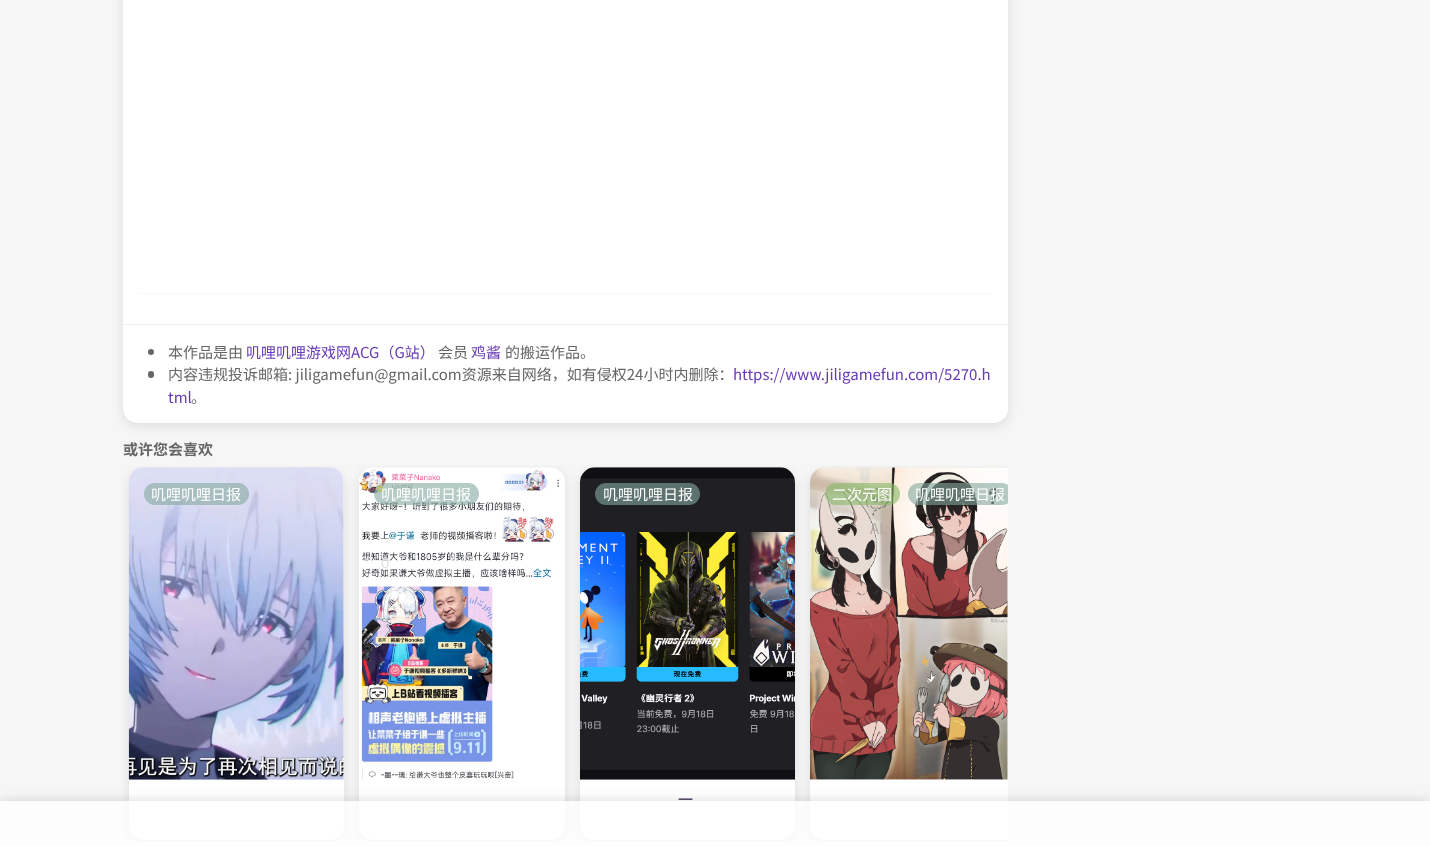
<svg xmlns="http://www.w3.org/2000/svg" width="1430" height="846" viewBox="0 0 1430 846">
  <defs>
    <clipPath id="clip1"><path d="M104 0H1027V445H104ZM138-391H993C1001.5-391 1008-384.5 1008-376V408C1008 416.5 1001.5 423 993 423H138C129.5 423 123 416.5 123 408V-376C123-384.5 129.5-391 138-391Z" clip-rule="evenodd"/></clipPath>
    <clipPath id="clip2"><rect x="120" y="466" width="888" height="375"/></clipPath>
    <clipPath id="clip3"><path d="M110 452H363V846H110ZM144 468H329C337.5 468 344 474.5 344 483V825C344 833.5 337.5 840 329 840H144C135.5 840 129 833.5 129 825V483C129 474.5 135.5 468 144 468Z" clip-rule="evenodd"/></clipPath>
    <clipPath id="clip4"><path d="M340 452H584V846H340ZM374 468H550C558.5 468 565 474.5 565 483V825C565 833.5 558.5 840 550 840H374C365.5 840 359 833.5 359 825V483C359 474.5 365.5 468 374 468Z" clip-rule="evenodd"/></clipPath>
    <clipPath id="clip5"><path d="M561 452H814V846H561ZM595 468H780C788.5 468 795 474.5 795 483V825C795 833.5 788.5 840 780 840H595C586.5 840 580 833.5 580 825V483C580 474.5 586.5 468 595 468Z" clip-rule="evenodd"/></clipPath>
    <clipPath id="clip6"><path d="M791 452H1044V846H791ZM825 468H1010C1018.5 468 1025 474.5 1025 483V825C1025 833.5 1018.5 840 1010 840H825C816.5 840 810 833.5 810 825V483C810 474.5 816.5 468 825 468Z" clip-rule="evenodd"/></clipPath>
    <clipPath id="clip7"><rect x="120" y="466" width="888" height="375"/></clipPath>
    <clipPath id="clip8"><path d="M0 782H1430V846H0ZM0 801H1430V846H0Z" clip-rule="evenodd"/></clipPath>
  </defs>
  <rect width="100%" height="100%" fill="rgb(246,246,246)"/>
  <g clip-path="url(#clip1)">
    <rect x="123" y="-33" width="885" height="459" rx="15" fill="rgba(0,0,0,0.1)" filter="blur(6px)"/>
  </g>
  <rect x="123" y="-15" width="885" height="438" rx="15" fill="rgba(255,255,255,0.95)"/>
  <rect x="138" y="293" width="855" height="1" fill="rgb(249,249,249)"/>
  <rect x="123" y="324" width="885" height="1" fill="rgb(239,239,239)"/>
  <circle cx="151" cy="352" r="3" fill="rgb(102,102,102)"/>
  <text x="168" y="358" font-family="Noto Sans CJK SC" font-size="15" fill="rgb(102,102,102)">本作品是由</text>
  <text x="246" y="358" font-family="Noto Sans CJK SC" font-size="15" fill="rgb(103,58,183)">叽哩叽哩游戏网ACG（G站）</text>
  <text x="438" y="358" font-family="Noto Sans CJK SC" font-size="15" fill="rgb(102,102,102)">会员</text>
  <text x="471" y="358" font-family="Noto Sans CJK SC" font-size="15" fill="rgb(103,58,183)">鸡酱</text>
  <text x="505" y="358" font-family="Noto Sans CJK SC" font-size="15" fill="rgb(102,102,102)">的搬运作品。</text>
  <rect x="148" y="371" width="6" height="7" rx="3" fill="rgb(102,102,102)"/>
  <text x="168" y="380" font-family="Noto Sans CJK SC" font-size="15" fill="rgb(102,102,102)">内容违规投诉邮箱: jiligamefun@gmail.com资源来自网络，如有侵权24小时内删除：</text>
  <g font-family="Noto Sans CJK SC" font-size="15" fill="rgb(103,58,183)">
    <text x="733" y="380">https://www.jiligamefun.com/5270.h</text>
    <text x="168" y="403">tml</text>
  </g>
  <text x="191" y="403" font-family="Noto Sans CJK SC" font-size="15" fill="rgb(102,102,102)">。</text>
  <text x="123" y="455" font-family="Noto Sans CJK SC" font-size="15" font-weight="bold" fill="rgb(102,102,102)">或许您会喜欢</text>
  <g clip-path="url(#clip2)">
    <g clip-path="url(#clip3)">
      <rect x="129" y="471" width="215" height="373" rx="15" fill="rgba(0,0,0,0.1)" filter="blur(6px)"/>
    </g>
  </g>
  <rect x="129" y="468" width="215" height="372" rx="15" fill="rgba(255,255,255,0.95)"/>
  <image x="128" y="467" width="216" height="313" href="pic1.png"/>
  <rect x="144" y="483" width="105" height="22" rx="11" fill="rgba(132,168,158,0.6)"/>
  <text x="151" y="500" font-family="Noto Sans CJK SC" font-size="15" fill="rgb(255,255,255)">叽哩叽哩日报</text>
  <g clip-path="url(#clip2)">
    <g clip-path="url(#clip4)">
      <rect x="359" y="471" width="206" height="373" rx="15" fill="rgba(0,0,0,0.1)" filter="blur(6px)"/>
    </g>
  </g>
  <rect x="359" y="468" width="206" height="372" rx="15" fill="rgba(255,255,255,0.95)"/>
  <image x="359" y="467" width="206" height="313" href="pic2.png"/>
  <rect x="374" y="483" width="105" height="22" rx="11" fill="rgba(132,168,158,0.6)"/>
  <text x="381" y="500" font-family="Noto Sans CJK SC" font-size="15" fill="rgb(255,255,255)">叽哩叽哩日报</text>
  <text x="381" y="568" font-family="Noto Sans CJK SC" font-size="15" fill="rgb(224,225,226)">0</text>
  <g clip-path="url(#clip2)">
    <g clip-path="url(#clip5)">
      <rect x="580" y="471" width="215" height="373" rx="15" fill="rgba(0,0,0,0.1)" filter="blur(6px)"/>
    </g>
  </g>
  <rect x="580" y="468" width="215" height="372" rx="15" fill="rgba(255,255,255,0.95)"/>
  <image x="580" y="467" width="215" height="313" href="pic3.png"/>
  <rect x="595" y="483" width="105" height="22" rx="11" fill="rgb(92,114,109)"/>
  <text x="603" y="500" font-family="Noto Sans CJK SC" font-size="15" fill="rgb(255,255,255)">叽哩叽哩日报</text>
  <text x="678" y="805" font-family="Noto Sans CJK SC" font-size="15" fill="rgb(34,19,61)">一</text>
  <g clip-path="url(#clip2)">
    <g clip-path="url(#clip6)">
      <rect x="810" y="471" width="215" height="373" rx="15" fill="rgba(0,0,0,0.1)" filter="blur(6px)"/>
    </g>
  </g>
  <path d="M825 468H1008V840H825C816.5 840 810 833.5 810 825V483C810 474.5 816.5 468 825 468Z" fill="rgba(255,255,255,0.95)"/>
  <image x="810" y="467" width="198" height="313" href="pic4.png"/>
  <rect x="825" y="483" width="75" height="22" rx="11" fill="rgba(134,183,103,0.6)"/>
  <text x="832" y="500" font-family="Noto Sans CJK SC" font-size="15" fill="rgb(255,255,255)">二次元图</text>
  <g clip-path="url(#clip7)">
    <rect x="908" y="483" width="105" height="22" rx="11" fill="rgba(132,168,158,0.6)"/>
  </g>
  <text x="915" y="500" font-family="Noto Sans CJK SC" font-size="15" fill="rgb(255,255,255)">叽哩叽哩日报</text>
  <text x="870" y="534" font-family="Noto Sans CJK SC" font-size="15" fill="rgb(179,170,163)">AL</text>
  <text x="832" y="568" font-family="Noto Sans CJK SC" font-size="15" fill="rgb(125,113,110)">0</text>
  <g clip-path="url(#clip8)">
    <rect x="0" y="801" width="1430" height="45" fill="rgba(0,0,0,0.15)" filter="blur(6px)"/>
  </g>
  <rect x="0" y="801" width="1430" height="45" fill="rgba(255,255,255,0.75)"/>
</svg>
